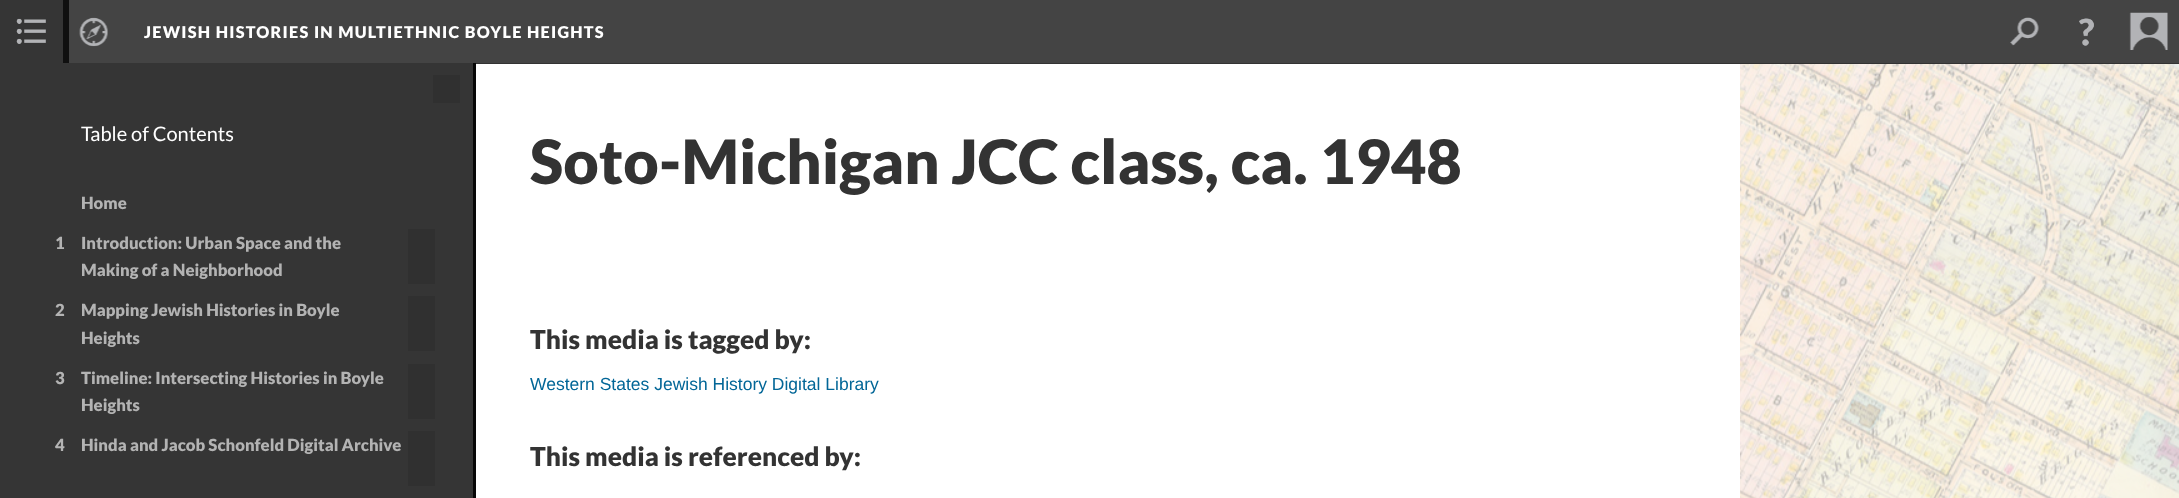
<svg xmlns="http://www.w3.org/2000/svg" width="2179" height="498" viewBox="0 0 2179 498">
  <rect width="100%" height="100%" fill="rgb(255,255,255)"/>
  <rect x="69" y="0" width="2110" height="63" fill="rgb(68,68,68)"/>
  <rect x="476" y="63" width="1703" height="1" fill="rgb(51,51,51)"/>
  <text x="144" y="38" font-family="Lato" font-size="16.25" font-weight="900" letter-spacing="1.25" fill="rgb(255,255,255)">JEWISH HISTORIES IN MULTIETHNIC BOYLE HEIGHTS</text>
  <image x="2010" y="17" width="29" height="29" href="pic1.png"/>
  <image x="2079" y="18" width="15" height="28" href="pic2.png"/>
  <image x="2129" y="12" width="39" height="38" href="pic3.png"/>
  <image x="79" y="17" width="29" height="30" href="pic4.png"/>
  <rect x="0" y="0" width="63" height="63" fill="rgb(53,53,53)"/>
  <image x="16" y="18" width="30" height="26" href="pic5.png"/>
  <rect x="-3" y="-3" width="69" height="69" fill="none" stroke="rgb(16,16,16)" stroke-width="6"/>
  <rect x="0" y="63" width="473" height="435" fill="rgb(53,53,53)"/>
  <rect x="473" y="63" width="3" height="435" fill="rgb(7,7,7)"/>
  <rect x="433" y="75" width="27" height="28" fill="rgb(48,48,48)"/>
  <text x="81" y="141" font-family="Lato" font-size="20" fill="rgb(255,255,255)">Table of Contents</text>
  <g font-family="Lato" font-size="16.7" font-weight="900" fill="rgb(179,179,179)">
    <text x="81" y="209">Home</text>
    <text x="55" y="249">1</text>
    <text>
      <tspan x="81" y="249">Introduction: Urban Space and the</tspan>
      <tspan x="81" y="276">Making of a Neighborhood</tspan>
    </text>
  </g>
  <rect x="408" y="229" width="27" height="55" fill="rgb(48,48,48)"/>
  <g font-family="Lato" font-size="16.7" font-weight="900" fill="rgb(179,179,179)">
    <text x="55" y="316">2</text>
    <text>
      <tspan x="81" y="316">Mapping Jewish Histories in Boyle</tspan>
      <tspan x="81" y="344">Heights</tspan>
    </text>
  </g>
  <rect x="408" y="296" width="27" height="55" fill="rgb(48,48,48)"/>
  <g font-family="Lato" font-size="16.7" font-weight="900" fill="rgb(179,179,179)">
    <text x="55" y="384">3</text>
    <text>
      <tspan x="81" y="384">Timeline: Intersecting Histories in Boyle</tspan>
      <tspan x="81" y="411">Heights</tspan>
    </text>
  </g>
  <rect x="408" y="364" width="27" height="55" fill="rgb(48,48,48)"/>
  <g font-family="Lato" font-size="16.7" font-weight="900" fill="rgb(179,179,179)">
    <text x="55" y="451">4</text>
    <text x="81" y="451">Hinda and Jacob Schonfeld Digital Archive</text>
  </g>
  <rect x="408" y="431" width="27" height="55" fill="rgb(48,48,48)"/>
  <text x="530" y="184" font-family="Lato" font-size="61.25" font-weight="900" fill="rgb(51,51,51)">Soto-Michigan JCC class, ca. 1948</text>
  <text x="530" y="349" font-family="Lato" font-size="26.25" font-weight="900" fill="rgb(51,51,51)">This media is tagged by:</text>
  <text x="530" y="390" font-family="Liberation Sans" font-size="17.5" fill="rgb(2,102,151)">Western States Jewish History Digital Library</text>
  <text x="530" y="466" font-family="Lato" font-size="26.25" font-weight="900" fill="rgb(51,51,51)">This media is referenced by:</text>
  <image x="1740" y="64" width="439" height="434" href="pic6.png"/>
  <image x="1740" y="64" width="439" height="434" href="pic7.png"/>
</svg>
